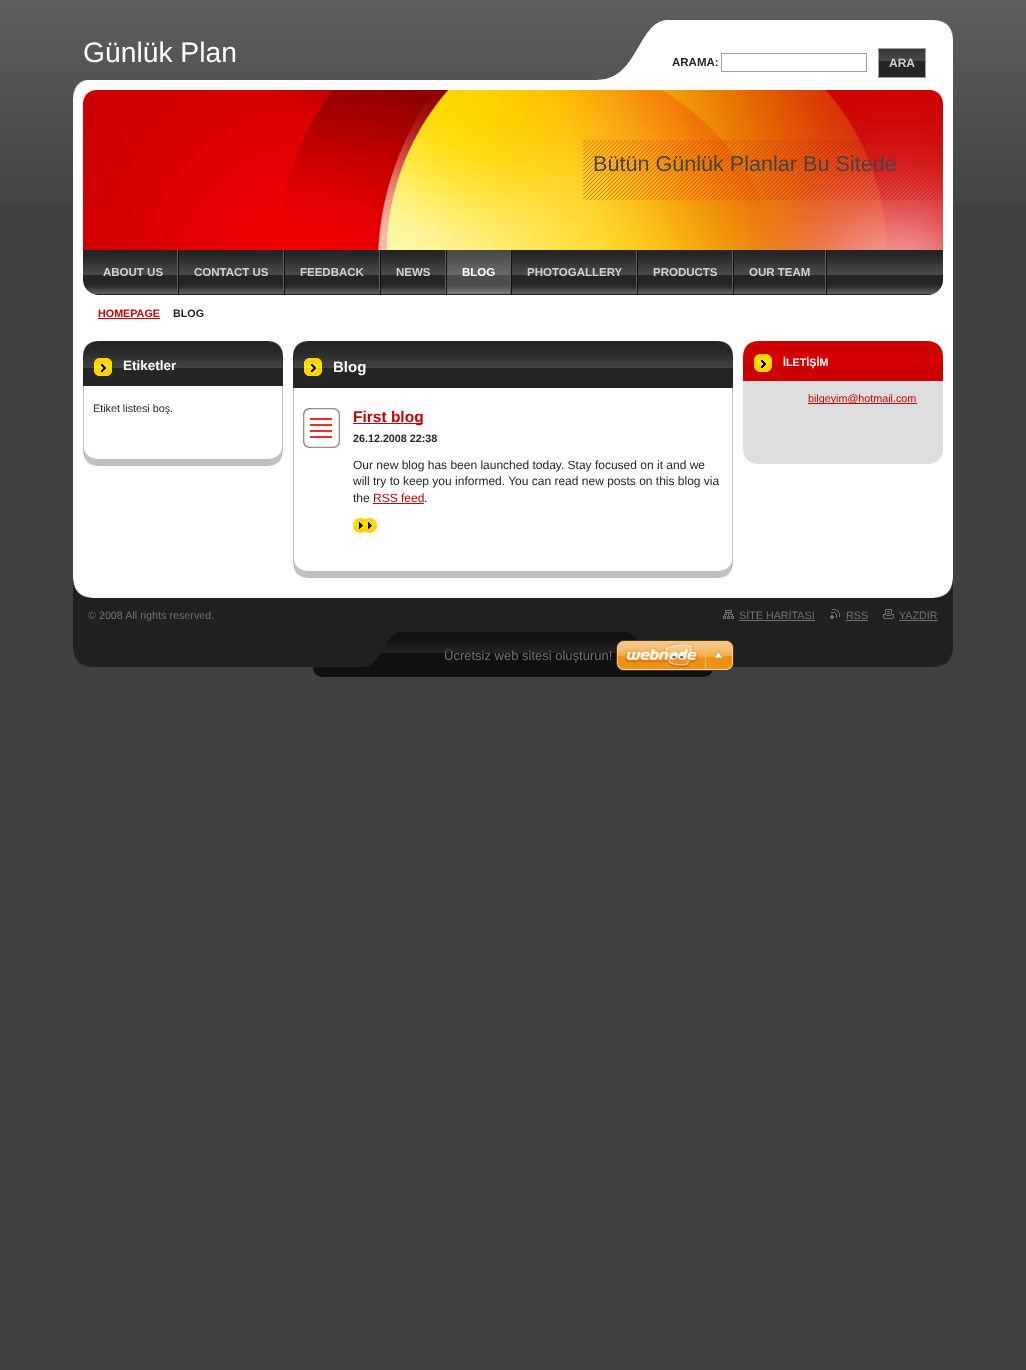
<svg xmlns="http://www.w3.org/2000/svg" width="1026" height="1370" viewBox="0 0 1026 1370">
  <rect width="100%" height="100%" fill="rgb(64,64,64)"/>
  <image x="0" y="0" width="1026" height="204" href="pic1.png"/>
  <text x="83" y="62" font-family="Liberation Sans" font-size="28.25" fill="rgb(255,255,255)">Günlük Plan</text>
  <image x="73" y="80" width="880" height="170" href="pic2.png"/>
  <image x="83" y="90" width="860" height="160" href="pic4.png"/>
  <image x="73" y="80" width="870" height="23" href="pic3.png"/>
  <text x="593" y="171" font-family="Liberation Sans" font-size="21.6" fill="rgb(67,67,67)">Bütün Günlük Planlar Bu Sitede</text>
  <image x="73" y="250" width="880" height="45" href="pic5.png"/>
  <rect x="178" y="250" width="1" height="44" fill="rgb(16,16,16)"/>
  <rect x="177" y="250" width="1" height="44" fill="rgb(95,95,95)"/>
  <text x="103" y="276" font-family="Liberation Sans" font-size="11.5" font-weight="bold" fill="rgb(208,208,208)">ABOUT US</text>
  <rect x="284" y="250" width="1" height="44" fill="rgb(16,16,16)"/>
  <rect x="283" y="250" width="1" height="44" fill="rgb(95,95,95)"/>
  <text x="194" y="276" font-family="Liberation Sans" font-size="11.5" font-weight="bold" fill="rgb(208,208,208)">CONTACT US</text>
  <rect x="380" y="250" width="1" height="44" fill="rgb(16,16,16)"/>
  <rect x="379" y="250" width="1" height="44" fill="rgb(95,95,95)"/>
  <text x="300" y="276" font-family="Liberation Sans" font-size="11.5" font-weight="bold" fill="rgb(208,208,208)">FEEDBACK</text>
  <rect x="446" y="250" width="1" height="44" fill="rgb(16,16,16)"/>
  <rect x="445" y="250" width="1" height="44" fill="rgb(95,95,95)"/>
  <text x="396" y="276" font-family="Liberation Sans" font-size="11.5" font-weight="bold" fill="rgb(208,208,208)">NEWS</text>
  <rect x="511" y="250" width="1" height="44" fill="rgb(16,16,16)"/>
  <image x="447" y="250" width="63" height="44" href="pic6.png"/>
  <rect x="510" y="250" width="1" height="44" fill="rgb(95,95,95)"/>
  <text x="462" y="276" font-family="Liberation Sans" font-size="11.5" font-weight="bold" fill="rgb(255,255,255)">BLOG</text>
  <rect x="637" y="250" width="1" height="44" fill="rgb(16,16,16)"/>
  <rect x="636" y="250" width="1" height="44" fill="rgb(95,95,95)"/>
  <text x="527" y="276" font-family="Liberation Sans" font-size="11.5" font-weight="bold" fill="rgb(208,208,208)">PHOTOGALLERY</text>
  <rect x="733" y="250" width="1" height="44" fill="rgb(16,16,16)"/>
  <rect x="732" y="250" width="1" height="44" fill="rgb(95,95,95)"/>
  <text x="653" y="276" font-family="Liberation Sans" font-size="11.5" font-weight="bold" fill="rgb(208,208,208)">PRODUCTS</text>
  <rect x="826" y="250" width="1" height="44" fill="rgb(16,16,16)"/>
  <rect x="825" y="250" width="1" height="44" fill="rgb(95,95,95)"/>
  <text x="749" y="276" font-family="Liberation Sans" font-size="11.5" font-weight="bold" fill="rgb(208,208,208)">OUR TEAM</text>
  <image x="83" y="281" width="13" height="14" href="pic7.png"/>
  <image x="598" y="20" width="355" height="60" href="pic8.png"/>
  <text x="672" y="66" font-family="Liberation Sans" font-size="11.5" font-weight="bold" fill="rgb(37,37,37)">ARAMA:</text>
  <rect x="721.5" y="53.5" width="145" height="18" fill="none" stroke="rgb(159,159,159)"/>
  <rect x="879" y="61" width="46" height="16" fill="rgb(37,37,37)"/>
  <image x="879" y="49" width="46" height="12" href="pic9.png"/>
  <rect x="878.5" y="48.5" width="47" height="29" fill="none" stroke="rgb(159,159,159)"/>
  <text x="889" y="67" font-family="Liberation Sans" font-size="12" font-weight="bold" fill="rgb(208,208,208)">ARA</text>
  <rect x="73" y="295" width="880" height="303" fill="rgb(255,255,255)"/>
  <text x="98" y="317" font-family="Liberation Sans" font-size="10.75" font-weight="bold" fill="rgb(204,0,0)">HOMEPAGE</text>
  <rect x="98" y="318" width="62" height="1" fill="rgb(204,0,0)"/>
  <text x="173" y="317" font-family="Liberation Sans" font-size="10.75" font-weight="bold" fill="rgb(37,37,37)">BLOG</text>
  <image x="73" y="578" width="880" height="20" href="pic10.png"/>
  <image x="83" y="341" width="200" height="15" href="pic11.png"/>
  <rect x="282" y="386" width="1" height="63" fill="rgb(192,192,192)"/>
  <rect x="83" y="386" width="1" height="63" fill="rgb(192,192,192)"/>
  <image x="83" y="449" width="200" height="17" href="pic12.png"/>
  <rect x="83" y="376" width="200" height="10" fill="rgb(37,37,37)"/>
  <image x="83" y="356" width="200" height="20" href="pic13.png"/>
  <text x="123" y="370" font-family="Liberation Sans" font-size="13.5" font-weight="bold" fill="rgb(255,255,255)">Etiketler</text>
  <text x="93" y="412" font-family="Liberation Sans" font-size="10.75" fill="rgb(37,37,37)">Etiket listesi boş.</text>
  <image x="293" y="341" width="440" height="15" href="pic14.png"/>
  <rect x="732" y="388" width="1" height="173" fill="rgb(192,192,192)"/>
  <rect x="293" y="388" width="1" height="173" fill="rgb(192,192,192)"/>
  <image x="293" y="561" width="440" height="17" href="pic15.png"/>
  <rect x="293" y="376" width="440" height="12" fill="rgb(37,37,37)"/>
  <image x="293" y="356" width="440" height="20" href="pic16.png"/>
  <text x="333" y="372" font-family="Liberation Sans" font-size="15" font-weight="bold" fill="rgb(255,255,255)">Blog</text>
  <image x="303" y="408" width="37" height="40" href="pic17.png"/>
  <rect x="353" y="423" width="70" height="1" fill="rgb(204,0,0)"/>
  <text x="353" y="422" font-family="Liberation Sans" font-size="15.5" font-weight="bold" fill="rgb(204,0,0)">First blog</text>
  <text x="353" y="442" font-family="Liberation Sans" font-size="10.75" font-weight="bold" fill="rgb(37,37,37)">26.12.2008 22:38</text>
  <g font-family="Liberation Sans" font-size="12" fill="rgb(37,37,37)">
    <text>
      <tspan x="353" y="469">Our new blog has been launched today. Stay focused on it and we</tspan>
      <tspan x="353" y="485">will try to keep you informed. You can read new posts on this blog via</tspan>
      <tspan x="353" y="502">the</tspan>
    </text>
  </g>
  <text x="373" y="502" font-family="Liberation Sans" font-size="12" fill="rgb(204,0,0)">RSS feed</text>
  <rect x="373" y="503" width="51" height="1" fill="rgb(204,0,0)"/>
  <text x="424" y="502" font-family="Liberation Sans" font-size="12" fill="rgb(37,37,37)">.</text>
  <image x="353" y="518" width="24" height="15" href="pic18.png"/>
  <rect x="743" y="381" width="200" height="69" fill="rgb(221,221,221)"/>
  <image x="743" y="450" width="200" height="14" href="pic19.png"/>
  <image x="743" y="341" width="200" height="31" href="pic21.png"/>
  <image x="743" y="341" width="200" height="11" href="pic20.png"/>
  <rect x="743" y="372" width="200" height="9" fill="rgb(204,0,0)"/>
  <text x="783" y="366" font-family="Liberation Sans" font-size="10.75" font-weight="bold" fill="rgb(255,255,255)">İLETİŞİM</text>
  <rect x="808" y="403" width="109" height="1" fill="rgb(204,0,0)"/>
  <text x="808" y="402" font-family="Liberation Sans" font-size="10.75" fill="rgb(204,0,0)">bilgeyim@hotmail.com</text>
  <rect x="73" y="598" width="880" height="34" fill="rgb(32,32,32)"/>
  <text x="88" y="619" font-family="Liberation Sans" font-size="10.75" fill="rgb(112,112,112)">© 2008 All rights reserved.</text>
  <image x="723" y="610" width="11" height="9" href="pic22.png"/>
  <text x="739" y="619" font-family="Liberation Sans" font-size="10.75" fill="rgb(112,112,112)">SİTE HARİTASI</text>
  <rect x="739" y="620" width="76" height="1" fill="rgb(112,112,112)"/>
  <image x="830" y="609" width="10" height="10" href="pic23.png"/>
  <text x="846" y="619" font-family="Liberation Sans" font-size="10.75" fill="rgb(112,112,112)">RSS</text>
  <rect x="846" y="620" width="22" height="1" fill="rgb(112,112,112)"/>
  <image x="883" y="609" width="12" height="10" href="pic24.png"/>
  <text x="899" y="619" font-family="Liberation Sans" font-size="10.75" fill="rgb(112,112,112)">YAZDIR</text>
  <rect x="899" y="620" width="39" height="1" fill="rgb(112,112,112)"/>
  <image x="73" y="632" width="880" height="45" href="pic25.png"/>
  <text x="444" y="660" font-family="Liberation Sans" font-size="13" fill="rgb(112,112,112)">Ücretsiz web sitesi oluşturun!</text>
  <image x="616" y="640" width="118" height="31" href="pic26.png"/>
</svg>
